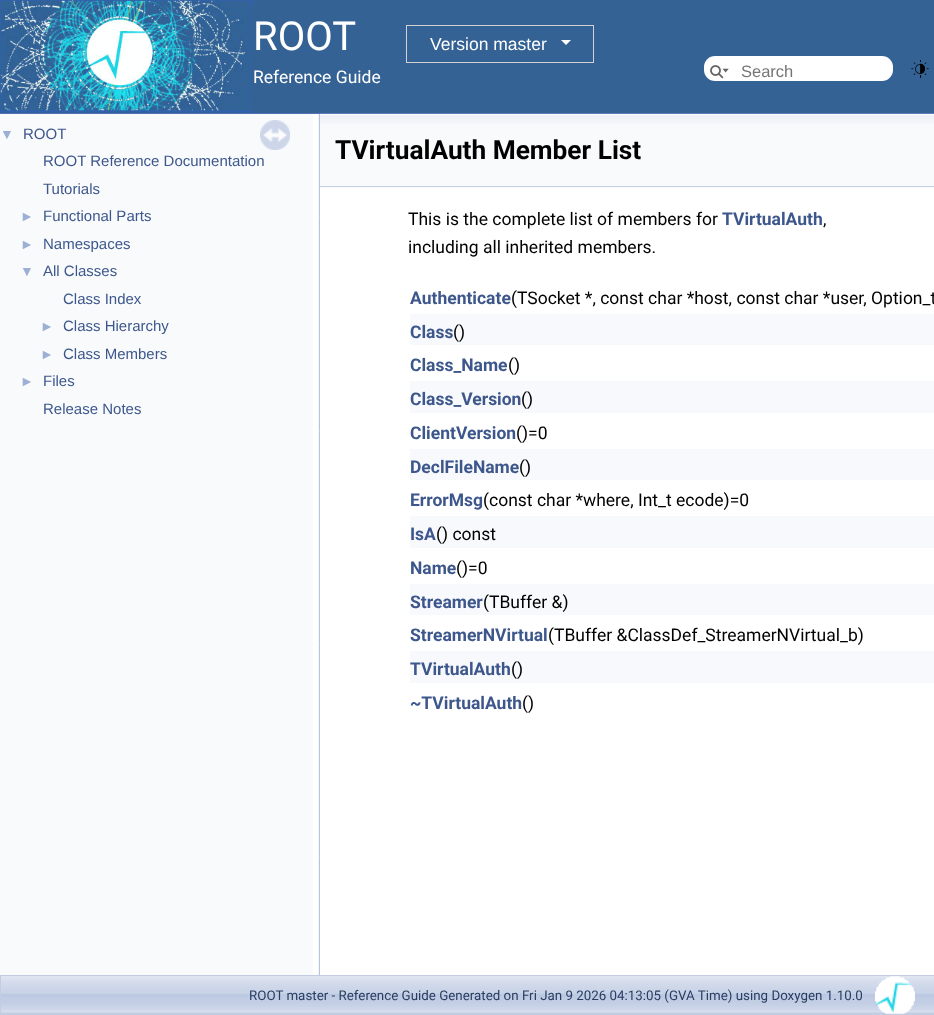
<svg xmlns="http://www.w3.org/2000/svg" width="934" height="1015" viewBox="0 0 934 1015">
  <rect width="100%" height="100%" fill="rgb(255,255,255)"/>
  <rect x="0" y="113" width="934" height="1" fill="rgb(83,115,180)"/>
  <rect x="0" y="0" width="934" height="113" fill="rgb(52,98,149)"/>
  <image x="0" y="0" width="254" height="113" href="pic1.png"/>
  <text x="253" y="50" font-family="Roboto" font-size="40" fill="rgb(255,255,255)">ROOT</text>
  <rect x="406.5" y="25.5" width="187" height="37" fill="none" stroke="rgb(211,211,211)"/>
  <text x="430" y="50" font-family="Liberation Sans" font-size="17.5" fill="rgb(255,255,255)">Version master</text>
  <path d="M561 40H571L566 45Z" fill="rgb(255,255,255)"/>
  <text x="253" y="83" font-family="Roboto" font-size="17.5" fill="rgb(255,255,255)">Reference Guide</text>
  <rect x="704" y="56" width="189" height="25" rx="11" fill="rgb(255,255,255)"/>
  <image x="710" y="65" width="19" height="14" href="pic2.png"/>
  <text x="741" y="77" font-family="Liberation Sans" font-size="16.5" fill="rgb(117,117,117)">Search</text>
  <image x="911" y="60" width="18" height="18" href="pic3.png"/>
  <rect x="0" y="114" width="313" height="861" fill="rgb(249,250,252)"/>
  <text x="0" y="139" font-family="Liberation Sans" font-size="14" fill="rgb(156,175,212)">▼</text>
  <g font-family="Liberation Sans" font-size="15" fill="rgb(61,87,140)">
    <text x="23" y="139">ROOT</text>
    <text>
      <tspan x="43" y="166">ROOT Reference Documentation</tspan>
      <tspan x="43" y="194">Tutorials</tspan>
    </text>
  </g>
  <text x="20" y="221" font-family="Liberation Sans" font-size="14" fill="rgb(156,175,212)">►</text>
  <text x="43" y="221" font-family="Liberation Sans" font-size="15" fill="rgb(61,87,140)">Functional Parts</text>
  <text x="20" y="249" font-family="Liberation Sans" font-size="14" fill="rgb(156,175,212)">►</text>
  <text x="43" y="249" font-family="Liberation Sans" font-size="15" fill="rgb(61,87,140)">Namespaces</text>
  <text x="20" y="276" font-family="Liberation Sans" font-size="14" fill="rgb(156,175,212)">▼</text>
  <g font-family="Liberation Sans" font-size="15" fill="rgb(61,87,140)">
    <text x="43" y="276">All Classes</text>
    <text x="63" y="304">Class Index</text>
  </g>
  <text x="40" y="331" font-family="Liberation Sans" font-size="14" fill="rgb(156,175,212)">►</text>
  <text x="63" y="331" font-family="Liberation Sans" font-size="15" fill="rgb(61,87,140)">Class Hierarchy</text>
  <text x="40" y="359" font-family="Liberation Sans" font-size="14" fill="rgb(156,175,212)">►</text>
  <text x="63" y="359" font-family="Liberation Sans" font-size="15" fill="rgb(61,87,140)">Class Members</text>
  <text x="20" y="386" font-family="Liberation Sans" font-size="14" fill="rgb(156,175,212)">►</text>
  <g font-family="Liberation Sans" font-size="15" fill="rgb(61,87,140)">
    <text>
      <tspan x="43" y="386">Files</tspan>
      <tspan x="43" y="414">Release Notes</tspan>
    </text>
  </g>
  <image x="260" y="120" width="30" height="30" href="pic4.png"/>
  <image x="318" y="113" width="2" height="862" href="pic5.png"/>
  <rect x="320" y="124" width="614" height="64" fill="rgb(249,250,252)"/>
  <image x="320" y="113" width="614" height="11" href="pic6.png"/>
  <rect x="320" y="186" width="614" height="1" fill="rgb(196,207,229)"/>
  <text x="335" y="159" font-family="Roboto" font-size="26.25" font-weight="bold" fill="rgb(0,0,0)">TVirtualAuth Member List</text>
  <text x="408" y="225" font-family="Roboto" font-size="17.5" fill="rgb(0,0,0)">This is the complete list of members for</text>
  <text x="722" y="225" font-family="Roboto" font-size="17.5" font-weight="bold" fill="rgb(61,87,140)">TVirtualAuth</text>
  <g font-family="Roboto" font-size="17.5" fill="rgb(0,0,0)">
    <text x="823" y="225">,</text>
    <text x="408" y="253">including all inherited members.</text>
  </g>
  <text x="410" y="304" font-family="Roboto" font-size="17.5" font-weight="bold" fill="rgb(61,87,140)">Authenticate</text>
  <text x="511" y="304" font-family="Roboto" font-size="17.5" fill="rgb(0,0,0)">(TSocket *, const char *host, const char *user, Option_t</text>
  <rect x="410" y="314" width="524" height="31" fill="rgb(248,249,252)"/>
  <text x="410" y="338" font-family="Roboto" font-size="17.5" font-weight="bold" fill="rgb(61,87,140)">Class</text>
  <text x="453" y="338" font-family="Roboto" font-size="17.5" fill="rgb(0,0,0)">()</text>
  <text x="410" y="371" font-family="Roboto" font-size="17.5" font-weight="bold" fill="rgb(61,87,140)">Class_Name</text>
  <text x="508" y="371" font-family="Roboto" font-size="17.5" fill="rgb(0,0,0)">()</text>
  <rect x="410" y="381" width="524" height="32" fill="rgb(248,249,252)"/>
  <text x="410" y="405" font-family="Roboto" font-size="17.5" font-weight="bold" fill="rgb(61,87,140)">Class_Version</text>
  <text x="521" y="405" font-family="Roboto" font-size="17.5" fill="rgb(0,0,0)">()</text>
  <text x="410" y="439" font-family="Roboto" font-size="17.5" font-weight="bold" fill="rgb(61,87,140)">ClientVersion</text>
  <text x="516" y="439" font-family="Roboto" font-size="17.5" fill="rgb(0,0,0)">()=0</text>
  <rect x="410" y="449" width="524" height="31" fill="rgb(248,249,252)"/>
  <text x="410" y="473" font-family="Roboto" font-size="17.5" font-weight="bold" fill="rgb(61,87,140)">DeclFileName</text>
  <text x="519" y="473" font-family="Roboto" font-size="17.5" fill="rgb(0,0,0)">()</text>
  <text x="410" y="506" font-family="Roboto" font-size="17.5" font-weight="bold" fill="rgb(61,87,140)">ErrorMsg</text>
  <text x="483" y="506" font-family="Roboto" font-size="17.5" fill="rgb(0,0,0)">(const char *where, Int_t ecode)=0</text>
  <rect x="410" y="516" width="524" height="32" fill="rgb(248,249,252)"/>
  <text x="410" y="540" font-family="Roboto" font-size="17.5" font-weight="bold" fill="rgb(61,87,140)">IsA</text>
  <text x="436" y="540" font-family="Roboto" font-size="17.5" fill="rgb(0,0,0)">() const</text>
  <text x="410" y="574" font-family="Roboto" font-size="17.5" font-weight="bold" fill="rgb(61,87,140)">Name</text>
  <text x="456" y="574" font-family="Roboto" font-size="17.5" fill="rgb(0,0,0)">()=0</text>
  <rect x="410" y="584" width="524" height="31" fill="rgb(248,249,252)"/>
  <text x="410" y="608" font-family="Roboto" font-size="17.5" font-weight="bold" fill="rgb(61,87,140)">Streamer</text>
  <text x="483" y="608" font-family="Roboto" font-size="17.5" fill="rgb(0,0,0)">(TBuffer &amp;)</text>
  <text x="410" y="641" font-family="Roboto" font-size="17.5" font-weight="bold" fill="rgb(61,87,140)">StreamerNVirtual</text>
  <text x="548" y="641" font-family="Roboto" font-size="17.5" fill="rgb(0,0,0)">(TBuffer &amp;ClassDef_StreamerNVirtual_b)</text>
  <rect x="410" y="651" width="524" height="32" fill="rgb(248,249,252)"/>
  <text x="410" y="675" font-family="Roboto" font-size="17.5" font-weight="bold" fill="rgb(61,87,140)">TVirtualAuth</text>
  <text x="511" y="675" font-family="Roboto" font-size="17.5" fill="rgb(0,0,0)">()</text>
  <text x="410" y="709" font-family="Roboto" font-size="17.5" font-weight="bold" fill="rgb(61,87,140)">~TVirtualAuth</text>
  <text x="522" y="709" font-family="Roboto" font-size="17.5" fill="rgb(0,0,0)">()</text>
  <image x="1" y="976" width="933" height="38" href="pic7.png"/>
  <rect x="0.5" y="975.5" width="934" height="39" fill="none" stroke="rgb(194,205,228)"/>
  <text x="249" y="1000" font-family="Roboto" font-size="13.35" fill="rgb(42,61,97)">ROOT master - Reference Guide Generated on Fri Jan 9 2026 04:13:05 (GVA Time) using Doxygen 1.10.0</text>
  <image x="875" y="976" width="40" height="38" href="pic8.png"/>
</svg>
